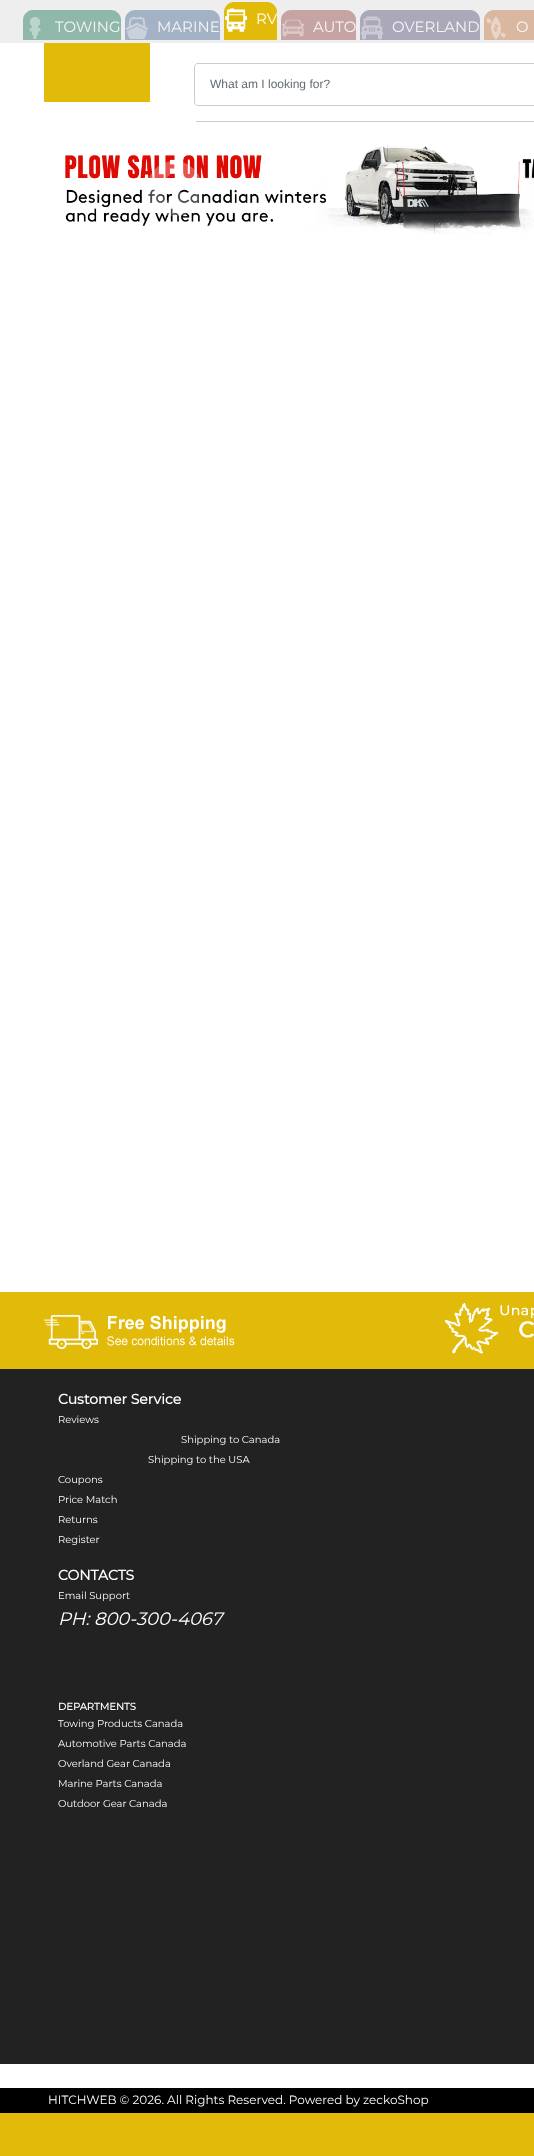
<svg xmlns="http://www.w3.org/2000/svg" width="534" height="2156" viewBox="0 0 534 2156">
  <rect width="100%" height="100%" fill="rgb(226,186,10)"/>
  <rect x="0" y="0" width="534" height="43" fill="rgb(238,238,238)"/>
  <path d="M234 2H267C272.5 2 277 6.5 277 12V40H224V12C224 6.5 228.5 2 234 2Z" fill="rgb(226,186,10)"/>
  <image x="225" y="8" width="23" height="24" href="pic1.png"/>
  <text x="256" y="24" font-family="Montserrat" font-size="15" font-weight="100" fill="rgb(255,255,255)">RV</text>
  <path d="M33 10H111C116.5 10 121 14.5 121 20V40H23V20C23 14.5 27.5 10 33 10Z" fill="rgb(143,184,170)"/>
  <image x="29" y="17" width="12" height="22" href="pic2.png"/>
  <text x="55" y="32" font-family="Montserrat" font-size="15" font-weight="100" fill="rgb(245,245,245)">TOWING</text>
  <path d="M135 10H210C215.5 10 220 14.5 220 20V40H125V20C125 14.5 129.5 10 135 10Z" fill="rgb(164,178,197)"/>
  <image x="126" y="16" width="22" height="23" href="pic3.png"/>
  <text x="157" y="32" font-family="Montserrat" font-size="15" font-weight="100" fill="rgb(245,245,245)">MARINE</text>
  <path d="M291 10H346C351.5 10 356 14.5 356 20V40H281V20C281 14.5 285.5 10 291 10Z" fill="rgb(198,164,164)"/>
  <image x="282" y="19" width="23" height="18" href="pic4.png"/>
  <text x="313" y="32" font-family="Montserrat" font-size="15" font-weight="100" fill="rgb(245,245,245)">AUTO</text>
  <path d="M370 10H470C475.5 10 480 14.5 480 20V40H360V20C360 14.5 364.5 10 370 10Z" fill="rgb(171,168,186)"/>
  <image x="360" y="16" width="24" height="24" href="pic5.png"/>
  <text x="392" y="32" font-family="Montserrat" font-size="15" font-weight="100" fill="rgb(245,245,245)">OVERLAND</text>
  <path d="M494 10H534C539.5 10 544 14.5 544 20V40H484V20C484 14.5 488.5 10 494 10Z" fill="rgb(218,184,159)"/>
  <image x="486" y="16" width="20" height="24" href="pic6.png"/>
  <text x="516" y="32" font-family="Montserrat" font-size="15" font-weight="100" fill="rgb(245,245,245)">O</text>
  <rect x="0" y="43" width="534" height="2045" fill="rgb(255,255,255)"/>
  <rect x="44" y="43" width="106" height="59" fill="rgb(226,186,10)"/>
  <path d="M198 63.5H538.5V105.5H198C196 105.5 194.5 104 194.5 102V67C194.5 65 196 63.5 198 63.5Z" fill="none" stroke="rgb(204,204,204)"/>
  <text x="210" y="88" font-family="Liberation Sans" font-size="12" fill="rgb(99,108,114)">What am I looking for?</text>
  <rect x="196" y="121" width="338" height="1" fill="rgb(204,204,204)"/>
  <image x="65" y="144" width="469" height="90" href="pic7.png"/>
  <image x="148" y="161" width="52" height="56" href="pic8.png"/>
  <rect x="0" y="1369" width="534" height="695" fill="rgb(34,34,34)"/>
  <rect x="0" y="1292" width="534" height="77" fill="rgb(226,186,10)"/>
  <image x="44" y="1315" width="191" height="34" href="pic9.png"/>
  <image x="444" y="1303" width="90" height="51" href="pic10.png"/>
  <text x="58" y="1404" font-family="Montserrat" font-size="14" font-weight="bold" fill="rgb(255,255,255)">Customer Service</text>
  <g font-family="Montserrat" font-size="10" font-weight="100" fill="rgb(255,255,255)">
    <text x="58" y="1423">Reviews</text>
    <text x="181" y="1443">Shipping to Canada</text>
    <text x="148" y="1463">Shipping to the USA</text>
    <text x="58" y="1483">Coupons</text>
    <text x="58" y="1503">Price Match</text>
    <text x="58" y="1523">Returns</text>
    <text x="58" y="1543">Register</text>
  </g>
  <text x="58" y="1580" font-family="Montserrat" font-size="14" font-weight="bold" fill="rgb(255,255,255)">CONTACTS</text>
  <text x="58" y="1599" font-family="Montserrat" font-size="10" font-weight="100" fill="rgb(255,255,255)">Email Support</text>
  <text x="58" y="1625" font-family="Montserrat" font-size="18" font-weight="100" font-style="italic" fill="rgb(255,255,255)">PH: 800-300-4067</text>
  <text x="58" y="1710" font-family="Montserrat" font-size="10" font-weight="bold" fill="rgb(255,255,255)">DEPARTMENTS</text>
  <g font-family="Montserrat" font-size="10" font-weight="100" fill="rgb(255,255,255)">
    <text x="58" y="1727">Towing Products Canada</text>
    <text x="58" y="1747">Automotive Parts Canada</text>
    <text x="58" y="1767">Overland Gear Canada</text>
    <text x="58" y="1787">Marine Parts Canada</text>
    <text x="58" y="1807">Outdoor Gear Canada</text>
  </g>
  <rect x="0" y="2088" width="534" height="25" fill="rgb(0,0,0)"/>
  <text x="48" y="2104" font-family="Montserrat" font-size="12" font-weight="100" fill="rgb(255,255,255)">HITCHWEB © 2026. All Rights Reserved. Powered by zeckoShop</text>
</svg>
